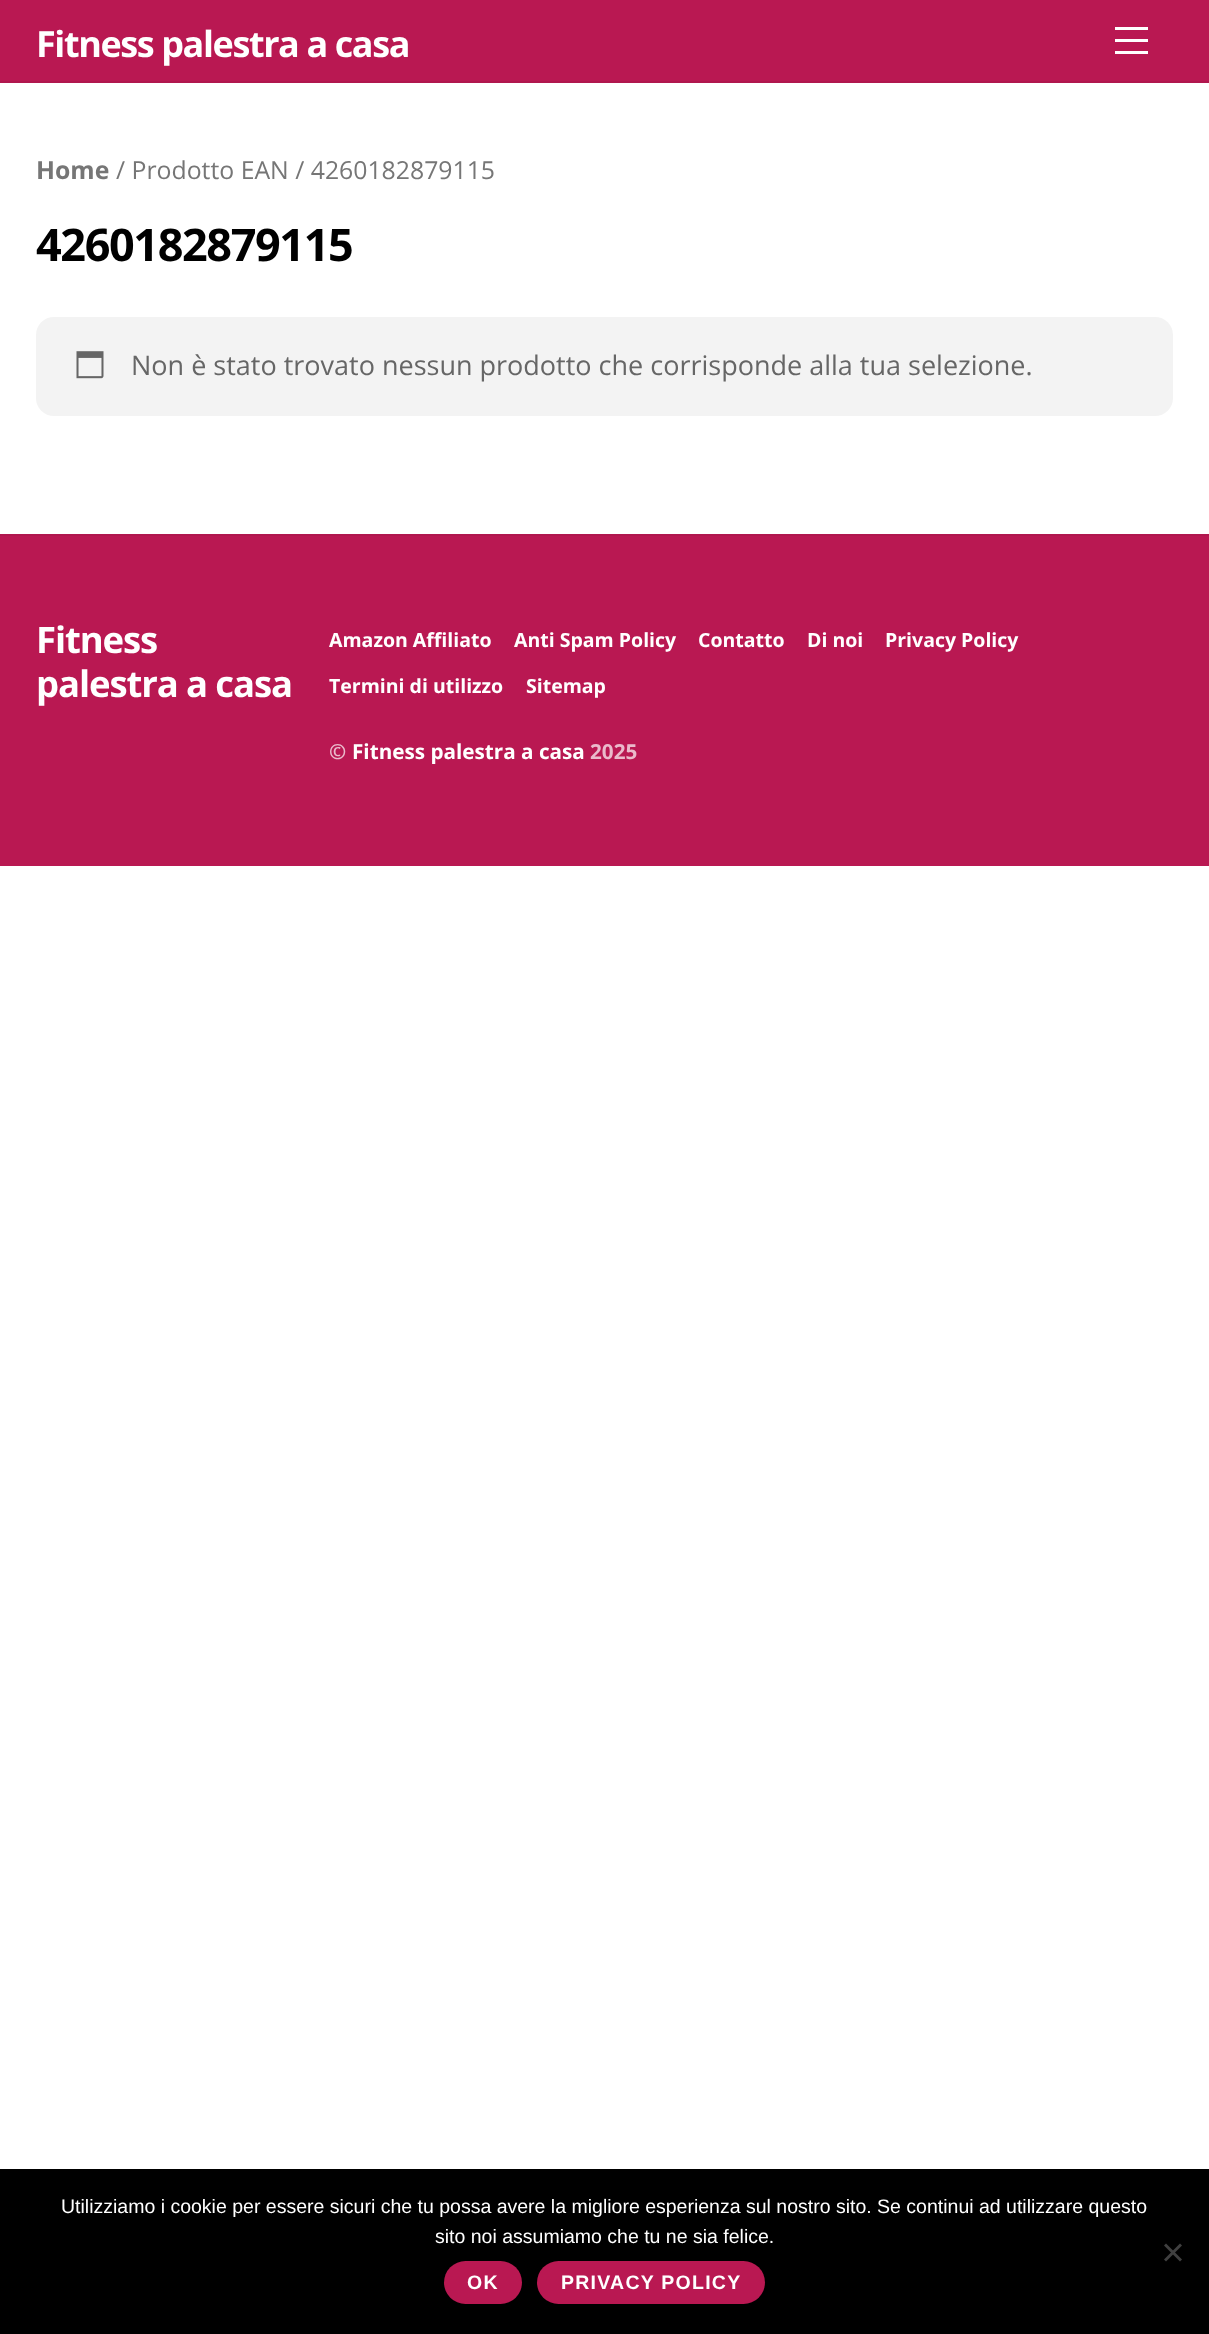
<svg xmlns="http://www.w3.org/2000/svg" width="1209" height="2334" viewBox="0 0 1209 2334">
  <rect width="100%" height="100%" fill="rgb(255,255,255)"/>
  <rect x="0" y="0" width="1209" height="81" fill="rgb(185,24,82)"/>
  <rect x="0" y="81" width="1209" height="2" fill="rgb(176,23,78)"/>
  <text x="36" y="57" font-family="Open Sans" font-size="36" font-weight="bold" letter-spacing="-1.4" fill="rgb(255,255,255)">Fitness palestra a casa</text>
  <rect x="1115" y="51" width="33" height="3" fill="rgb(255,255,255)"/>
  <rect x="1115" y="27" width="33" height="3" fill="rgb(255,255,255)"/>
  <rect x="1115" y="39" width="33" height="3" fill="rgb(255,255,255)"/>
  <text x="36" y="179" font-family="Open Sans" font-size="24.8" font-weight="bold" fill="rgb(118,118,118)">Home</text>
  <text x="116" y="179" font-family="Open Sans" font-size="24.8" fill="rgb(118,118,118)">/ Prodotto EAN / 4260182879115</text>
  <text x="36" y="261" font-family="Open Sans" font-size="45" font-weight="bold" letter-spacing="-1.4" fill="rgb(0,0,0)">4260182879115</text>
  <rect x="36" y="317" width="1137" height="99" rx="18" fill="rgb(243,243,243)"/>
  <image x="76" y="351" width="28" height="28" href="pic1.png"/>
  <text x="131" y="375" font-family="Open Sans" font-size="27" fill="rgb(102,102,102)">Non è stato trovato nessun prodotto che corrisponde alla tua selezione.</text>
  <rect x="0" y="536" width="1209" height="330" fill="rgb(185,24,82)"/>
  <rect x="0" y="534" width="1209" height="2" fill="rgb(176,23,78)"/>
  <g font-family="Open Sans" font-size="36.5" font-weight="bold" letter-spacing="-1.1" fill="rgb(255,255,255)">
    <text>
      <tspan x="36" y="653">Fitness</tspan>
      <tspan x="36" y="697">palestra a casa</tspan>
    </text>
  </g>
  <g font-family="Open Sans" font-size="19.5" font-weight="bold" fill="rgb(255,255,255)">
    <text x="329" y="647">Amazon Affiliato</text>
    <text x="514" y="647">Anti Spam Policy</text>
    <text x="698" y="647">Contatto</text>
    <text x="807" y="647">Di noi</text>
    <text x="885" y="647">Privacy Policy</text>
    <text x="329" y="693">Termini di utilizzo</text>
    <text x="526" y="693">Sitemap</text>
  </g>
  <text x="329" y="759" font-family="Open Sans" font-size="20.7" font-weight="bold" fill="rgb(234,186,203)">©</text>
  <text x="352" y="759" font-family="Open Sans" font-size="20.7" font-weight="bold" fill="rgb(255,255,255)">Fitness palestra a casa</text>
  <text x="590" y="759" font-family="Open Sans" font-size="20.7" font-weight="bold" fill="rgb(234,186,203)">2025</text>
  <rect x="0" y="2169" width="1209" height="165" fill="rgb(0,0,0)"/>
  <g font-family="Liberation Sans" font-size="19.5" fill="rgb(255,255,255)">
    <text x="61" y="2213">Utilizziamo i cookie per essere sicuri che tu possa avere la migliore esperienza sul nostro sito. Se continui ad utilizzare questo</text>
    <text x="435" y="2243">sito noi assumiamo che tu ne sia felice.</text>
  </g>
  <path d="M1180 2243.5L1182 2245.5L1166 2261.5L1164 2259.5Z" fill="rgb(64,64,64)"/>
  <path d="M1164 2245.5L1166 2243.5L1182 2259.5L1180 2261.5Z" fill="rgb(64,64,64)"/>
  <rect x="444" y="2261" width="78" height="43" rx="21.5" fill="rgb(185,24,82)"/>
  <text x="467" y="2289" font-family="Liberation Sans" font-size="19.5" font-weight="bold" letter-spacing="1.25" fill="rgb(255,255,255)">OK</text>
  <rect x="537" y="2261" width="228" height="43" rx="21.5" fill="rgb(185,24,82)"/>
  <text x="561" y="2289" font-family="Liberation Sans" font-size="19.5" font-weight="bold" letter-spacing="1.25" fill="rgb(255,255,255)">PRIVACY POLICY</text>
</svg>
